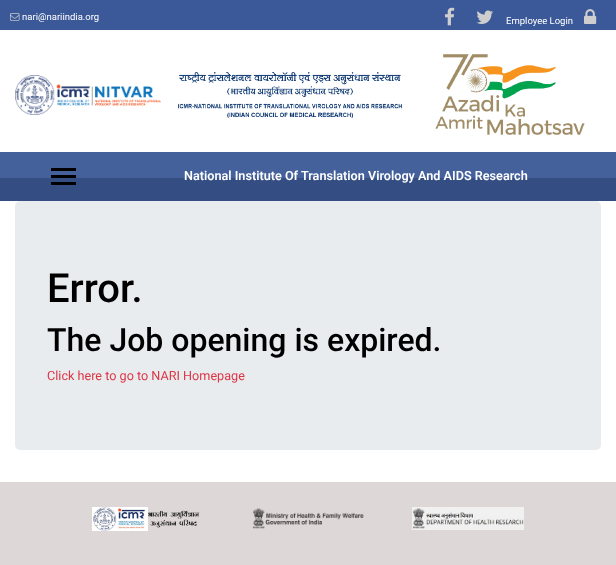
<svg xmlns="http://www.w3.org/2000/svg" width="616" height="565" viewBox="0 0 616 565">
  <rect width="100%" height="100%" fill="rgb(255,255,255)"/>
  <rect x="0" y="0" width="616" height="30" fill="rgb(59,89,152)"/>
  <image x="10" y="13" width="10" height="8" href="pic1.png"/>
  <text x="22" y="20" font-family="Roboto" font-size="9.5" fill="rgb(255,255,255)">nari@nariindia.org</text>
  <image x="445" y="7" width="10" height="19" href="pic2.png"/>
  <image x="476" y="10" width="17" height="14" href="pic3.png"/>
  <text x="506" y="24" font-family="Roboto" font-size="9.5" fill="rgb(255,255,255)">Employee Login</text>
  <image x="584" y="9" width="13" height="15" href="pic4.png"/>
  <image x="15" y="75" width="146" height="40" href="pic5.png"/>
  <image x="178" y="72" width="224" height="46" href="pic6.png"/>
  <image x="435" y="54" width="150" height="81" href="pic7.png"/>
  <image x="0" y="152" width="616" height="49" href="pic8.png"/>
  <rect x="51" y="168" width="25" height="3" fill="rgb(0,0,0)"/>
  <rect x="51" y="175" width="25" height="3" fill="rgb(0,0,0)"/>
  <rect x="51" y="182" width="25" height="3" fill="rgb(0,0,0)"/>
  <text x="184" y="180" font-family="Roboto" font-size="12.65" font-weight="600" fill="rgb(255,255,255)">National Institute Of Translation Virology And AIDS Research</text>
  <rect x="15" y="201" width="586" height="249" rx="5" fill="rgb(233,236,239)"/>
  <text x="47" y="302" font-family="Roboto" font-size="40" font-weight="500" fill="rgb(0,0,0)">Error.</text>
  <text x="47" y="351" font-family="Roboto" font-size="32" font-weight="500" fill="rgb(0,0,0)">The Job opening is expired.</text>
  <text x="47" y="380" font-family="Roboto" font-size="12.65" fill="rgb(220,53,69)">Click here to go to NARI Homepage</text>
  <rect x="0" y="482" width="616" height="83" fill="rgb(222,215,215)"/>
  <image x="92" y="507" width="108" height="24" href="pic9.png"/>
  <image x="252" y="508" width="112" height="21" href="pic10.png"/>
  <image x="412" y="507" width="112" height="23" href="pic11.png"/>
</svg>
